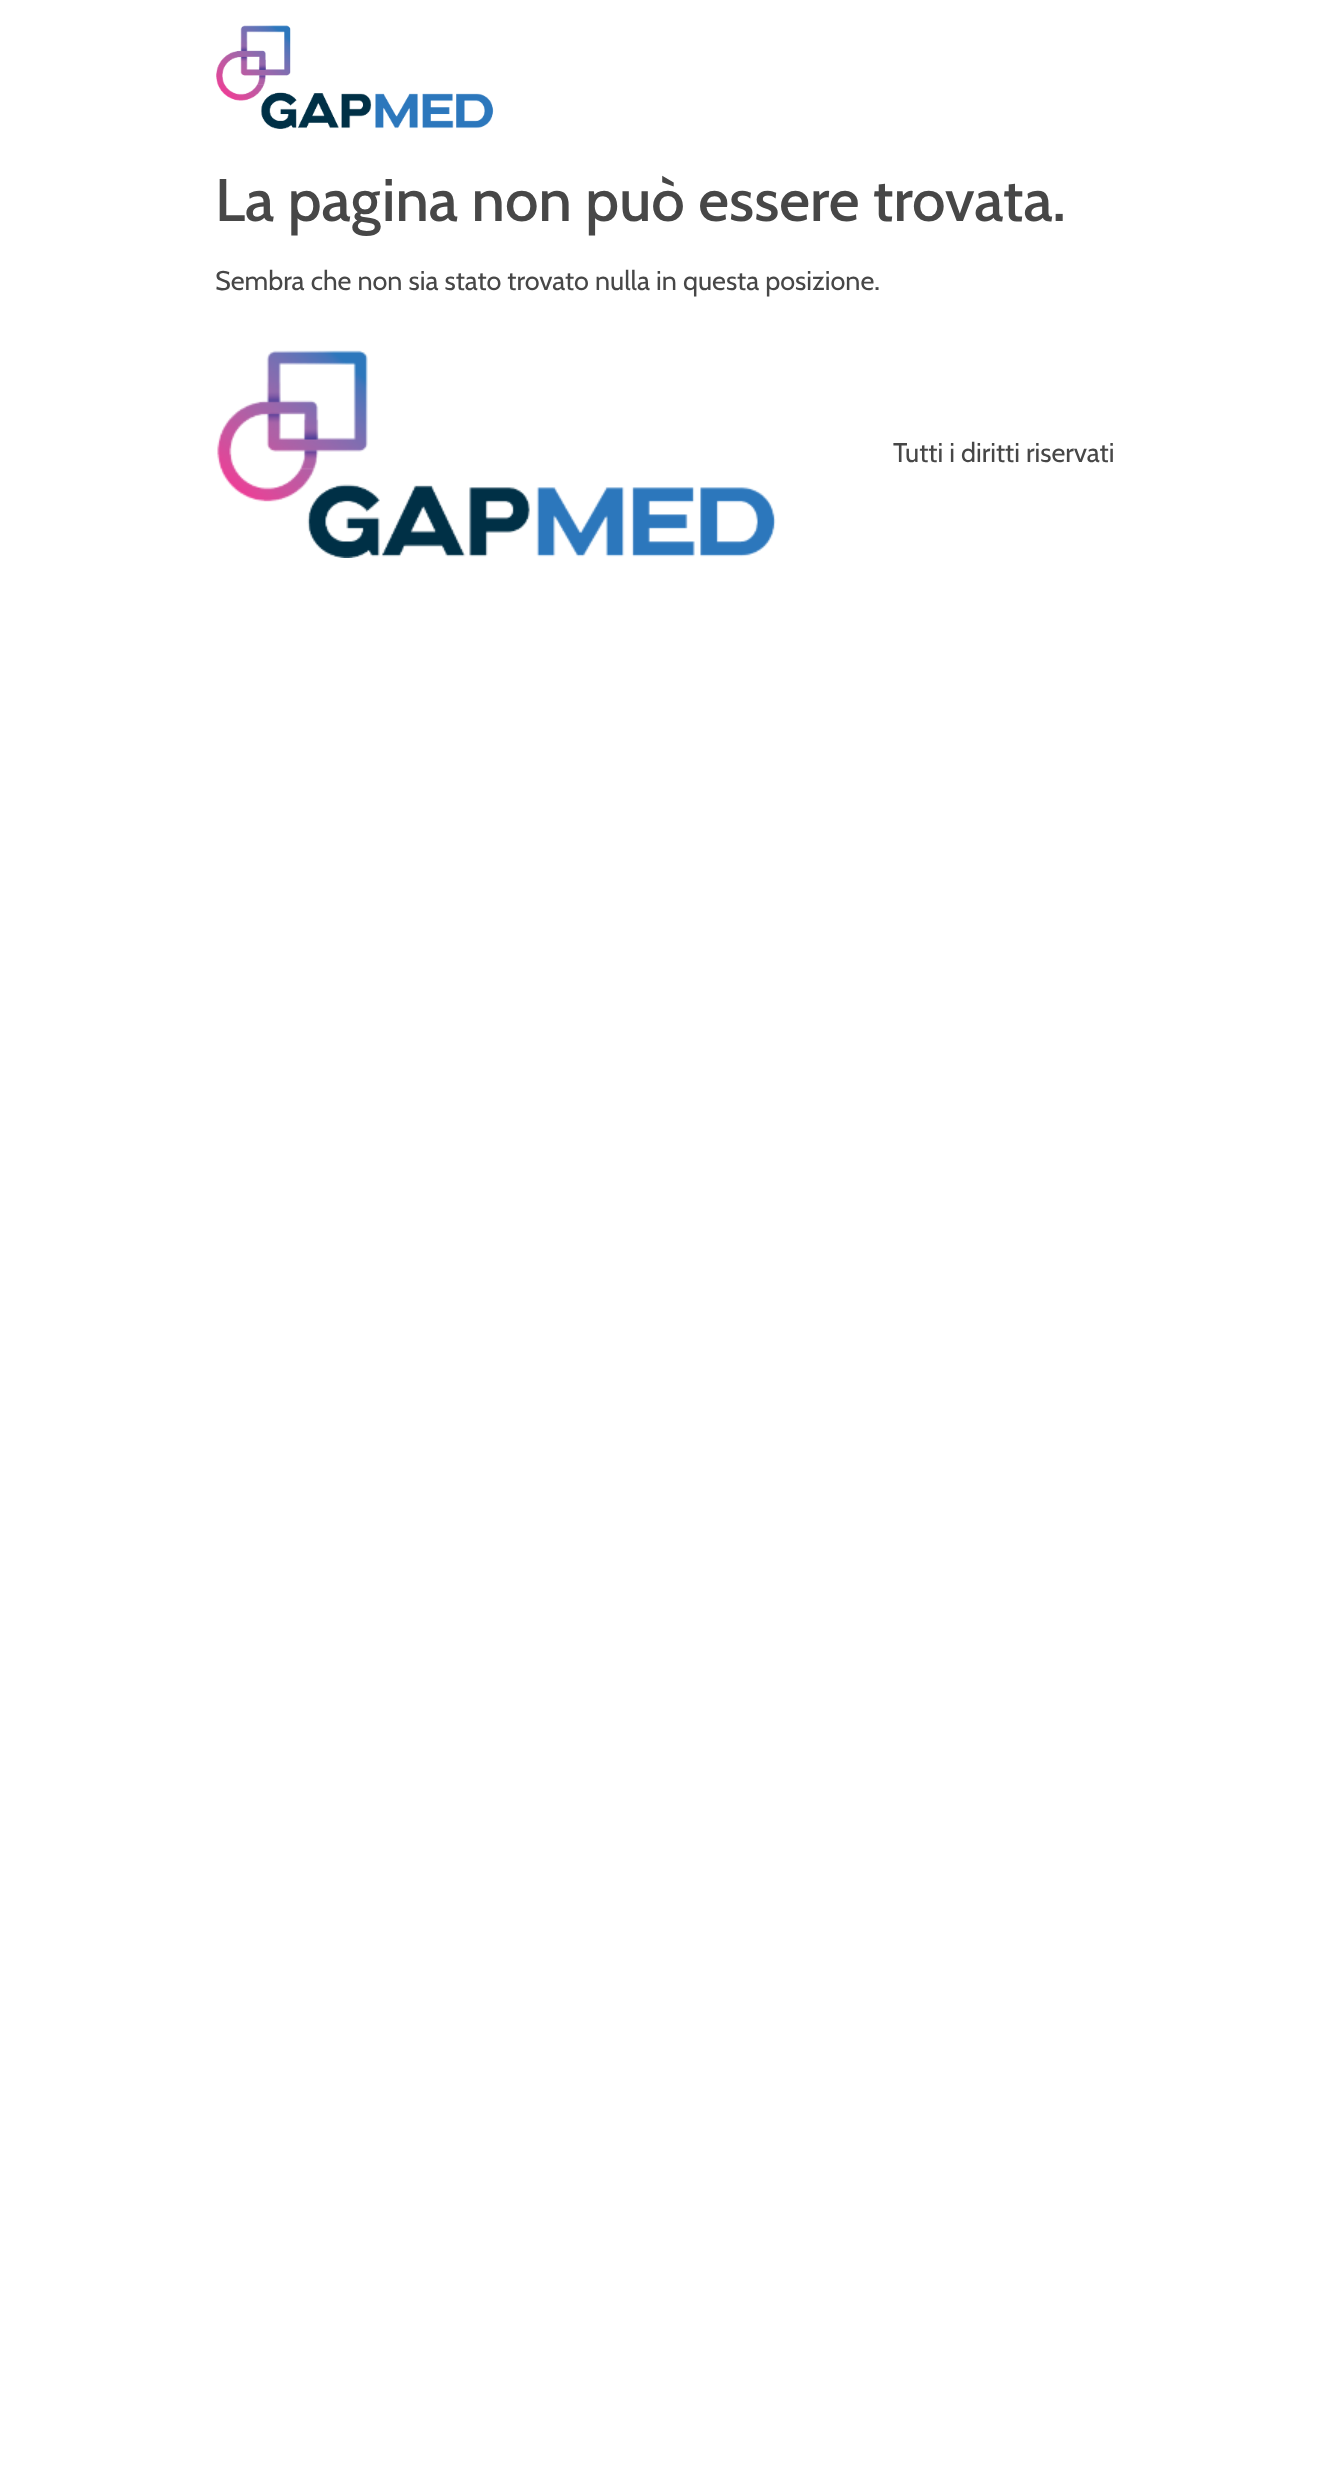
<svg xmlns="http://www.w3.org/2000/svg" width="1329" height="2489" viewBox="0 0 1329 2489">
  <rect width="100%" height="100%" fill="rgb(255,255,255)"/>
  <image x="216" y="25" width="278" height="104" href="pic1.png"/>
  <text x="215" y="221" font-family="Cabin" font-size="60" font-weight="500" fill="rgb(71,71,71)">La pagina non può essere trovata.</text>
  <text x="215" y="290" font-family="Cabin" font-size="27" fill="rgb(71,71,71)">Sembra che non sia stato trovato nulla in questa posizione.</text>
  <image x="217" y="350" width="559" height="208" href="pic2.png"/>
  <text x="893" y="462" font-family="Cabin" font-size="27" fill="rgb(71,71,71)">Tutti i diritti riservati</text>
</svg>
